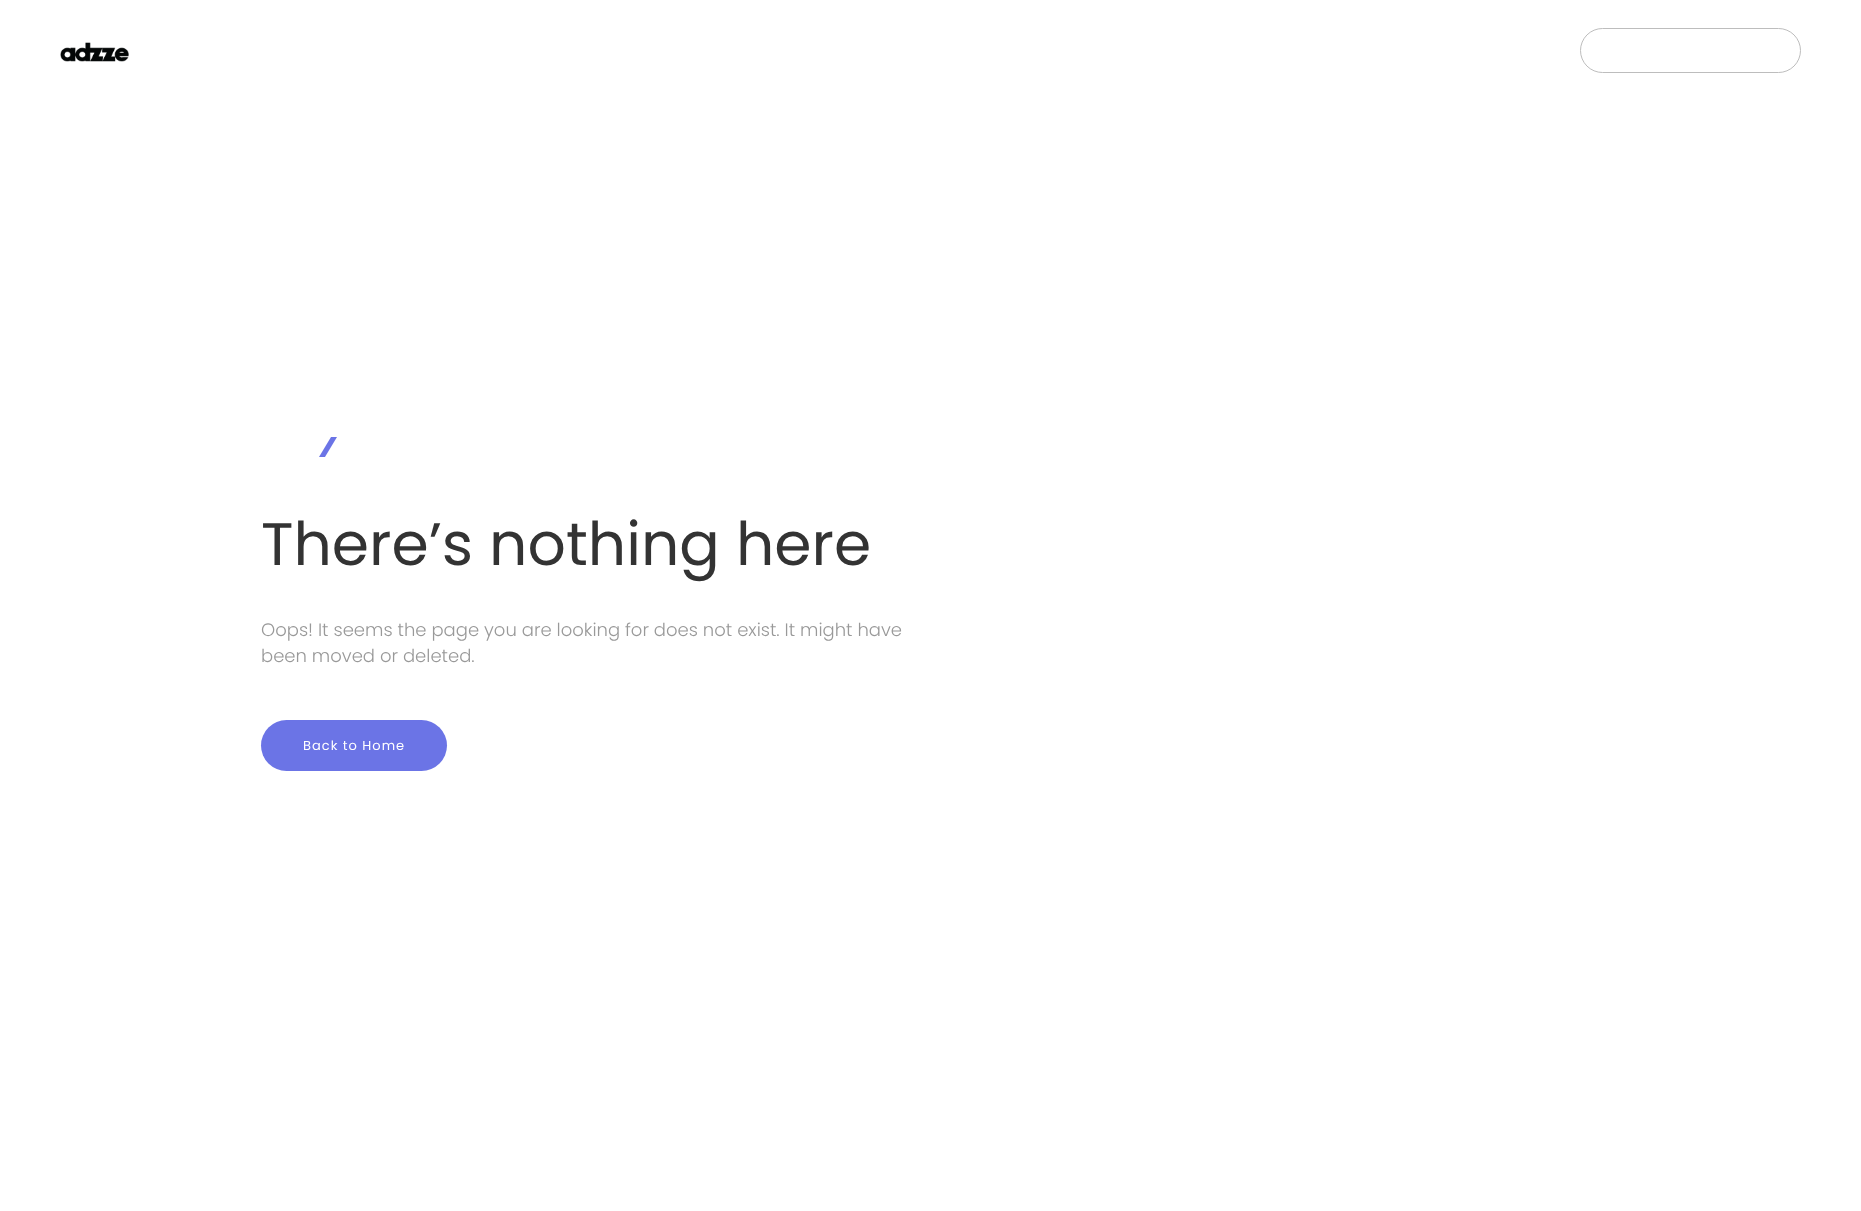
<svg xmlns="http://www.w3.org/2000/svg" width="1861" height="1211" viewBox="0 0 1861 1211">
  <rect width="100%" height="100%" fill="rgb(255,255,255)"/>
  <image x="60" y="42" width="69" height="20" href="pic1.png"/>
  <rect x="1580.5" y="28.5" width="220" height="44" rx="22" fill="none" stroke="rgb(189,189,189)"/>
  <image x="319" y="437" width="18" height="20" href="pic2.png"/>
  <text x="261" y="565" font-family="Poppins" font-size="60" fill="rgb(51,51,51)">There’s nothing here</text>
  <g font-family="Poppins" font-size="18" font-weight="300" fill="rgb(153,153,153)">
    <text>
      <tspan x="261" y="636">Oops! It seems the page you are looking for does not exist. It might have</tspan>
      <tspan x="261" y="662">been moved or deleted.</tspan>
    </text>
  </g>
  <rect x="261" y="720" width="186" height="51" rx="25.5" fill="rgb(107,116,230)"/>
  <text x="303" y="750" font-family="Poppins" font-size="13" letter-spacing="1" fill="rgb(255,255,255)">Back to Home</text>
</svg>
